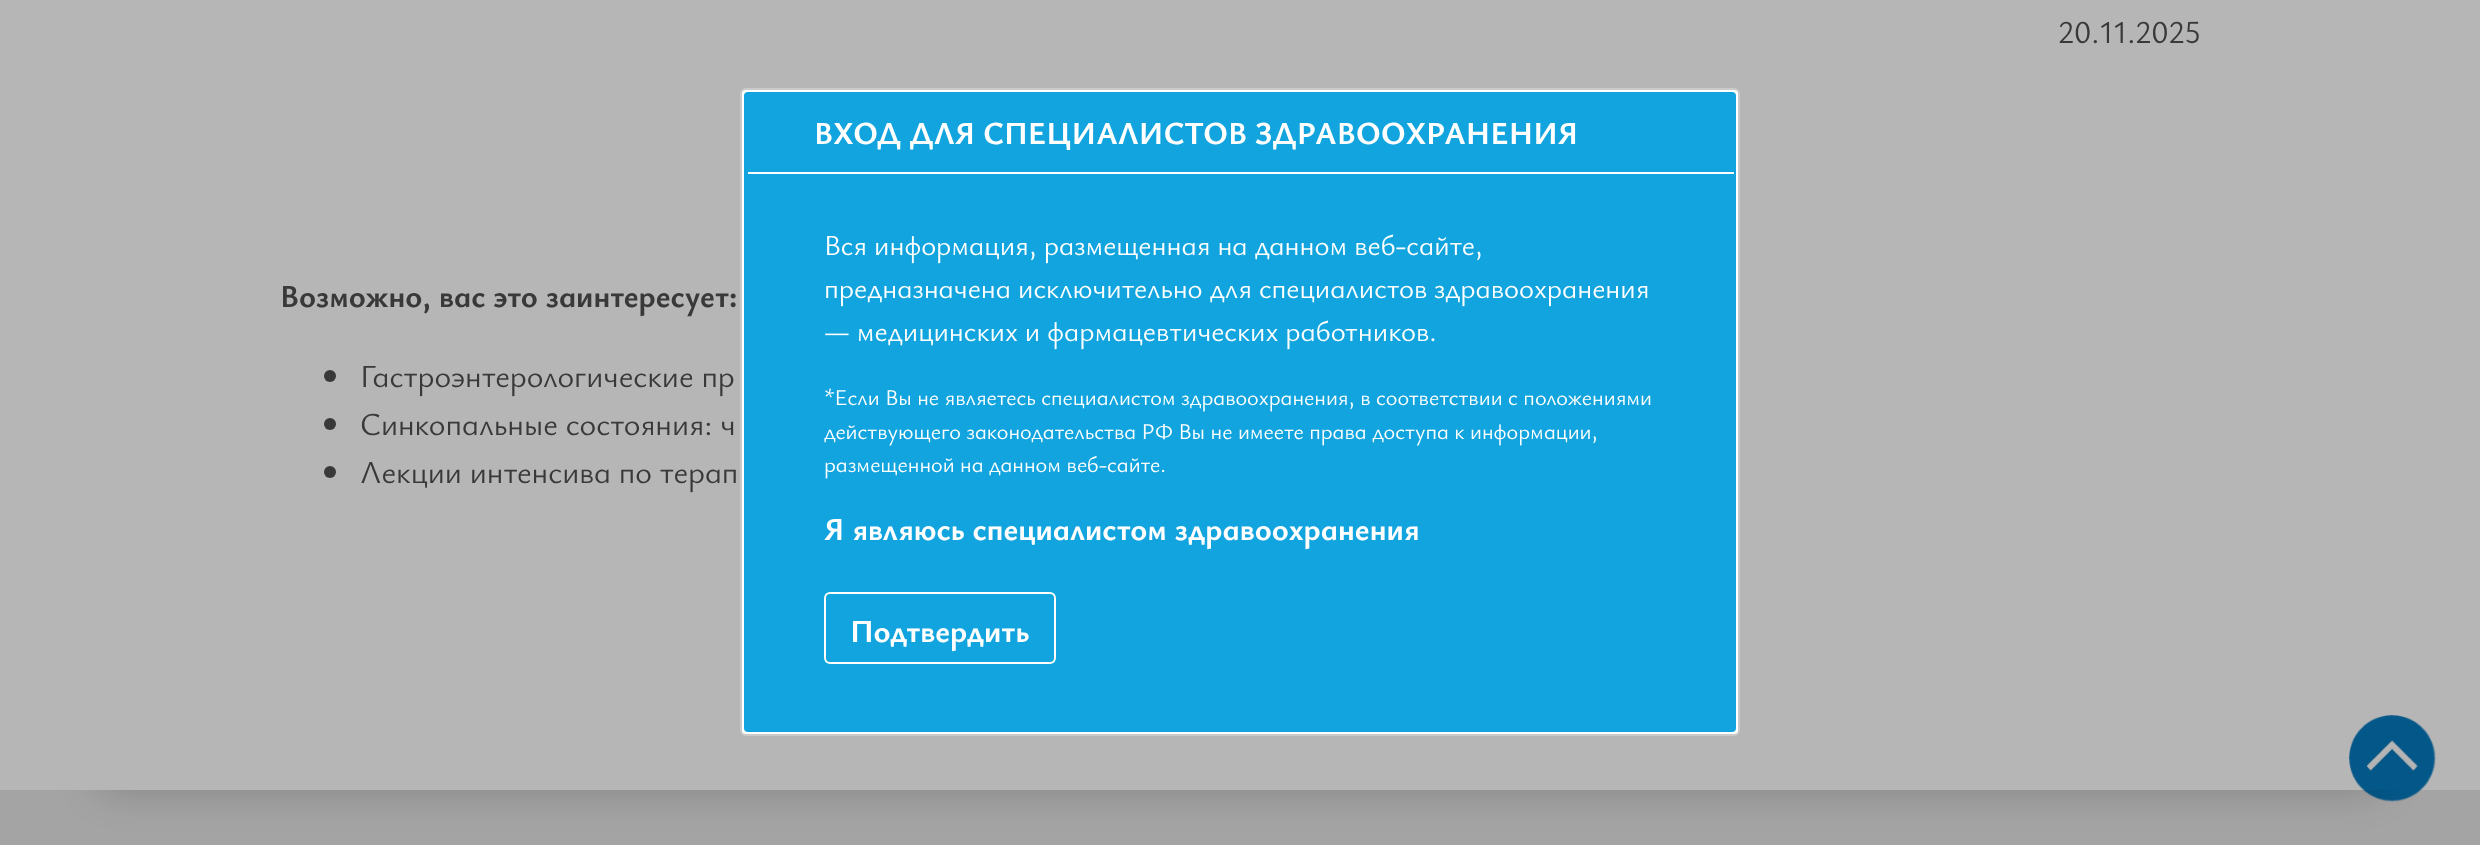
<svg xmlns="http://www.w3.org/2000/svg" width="2480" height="845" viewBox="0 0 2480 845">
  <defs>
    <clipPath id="clip1"><rect x="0" y="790" width="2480" height="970"/></clipPath>
  </defs>
  <rect width="100%" height="100%" fill="rgb(182,182,182)"/>
  <text x="2058" y="43" font-family="Ysabeau Infant" font-size="32" fill="rgb(57,57,57)">20.11.2025</text>
  <text x="280" y="307" font-family="Ysabeau Infant" font-size="32" font-weight="bold" fill="rgb(57,57,57)">Возможно, вас это заинтересует:</text>
  <circle cx="330" cy="376" r="6" fill="rgb(57,57,57)"/>
  <text x="360" y="387" font-family="Ysabeau Infant" font-size="32" fill="rgb(57,57,57)">Гастроэнтерологические пр</text>
  <circle cx="330" cy="424" r="6" fill="rgb(57,57,57)"/>
  <text x="360" y="435" font-family="Ysabeau Infant" font-size="32" fill="rgb(57,57,57)">Синкопальные состояния: ч</text>
  <circle cx="330" cy="472" r="6" fill="rgb(57,57,57)"/>
  <text x="360" y="483" font-family="Ysabeau Infant" font-size="32" fill="rgb(57,57,57)">Лекции интенсива по терап</text>
  <rect x="0" y="790" width="2480" height="55" fill="rgb(164,164,164)"/>
  <image x="2348" y="714" width="88" height="88" href="pic1.png"/>
  <g clip-path="url(#clip1)">
    <rect x="96" y="750" width="2288" height="40" rx="20" fill="rgba(3,3,3,0.2)" filter="blur(20px)"/>
  </g>
  <rect x="741" y="89" width="998" height="646" rx="5" fill="rgb(254,254,254)" stroke="rgb(202,202,202)" stroke-width="2"/>
  <rect x="743" y="91" width="994" height="642" rx="5" fill="rgb(17,164,222)" stroke="rgb(255,255,255)" stroke-width="2"/>
  <rect x="744" y="92" width="992" height="82" rx="6" fill="rgb(17,164,222)"/>
  <rect x="748" y="172" width="986" height="2" fill="rgb(255,255,255)"/>
  <text x="814" y="144" font-family="Ysabeau Infant" font-size="32" font-weight="bold" fill="rgb(255,255,255)">ВХОД ДЛЯ СПЕЦИАЛИСТОВ ЗДРАВООХРАНЕНИЯ</text>
  <g font-family="Ysabeau Infant" font-size="28.8" fill="rgb(255,255,255)">
    <text>
      <tspan x="824" y="255">Вся информация, размещенная на данном веб-сайте,</tspan>
      <tspan x="824" y="298">предназначена исключительно для специалистов</tspan>
    </text>
    <text x="1434" y="298">здравоохранения</text>
    <text x="824" y="341">— медицинских и фармацевтических работников.</text>
  </g>
  <g font-family="Ysabeau Infant" font-size="22.4" fill="rgb(255,255,255)">
    <text>
      <tspan x="824" y="405">*Если Вы не являетесь специалистом здравоохранения, в соответствии с положениями</tspan>
      <tspan x="824" y="439">действующего законодательства РФ Вы не имеете права доступа к информации,</tspan>
      <tspan x="824" y="472">размещенной на данном веб-сайте.</tspan>
    </text>
  </g>
  <text x="824" y="540" font-family="Ysabeau Infant" font-size="32" font-weight="bold" fill="rgb(255,255,255)">Я являюсь специалистом здравоохранения</text>
  <rect x="825" y="593" width="230" height="70" rx="5" fill="none" stroke="rgb(255,255,255)" stroke-width="2"/>
  <text x="850" y="642" font-family="Ysabeau Infant" font-size="32" font-weight="bold" fill="rgb(255,255,255)">Подтвердить</text>
</svg>
